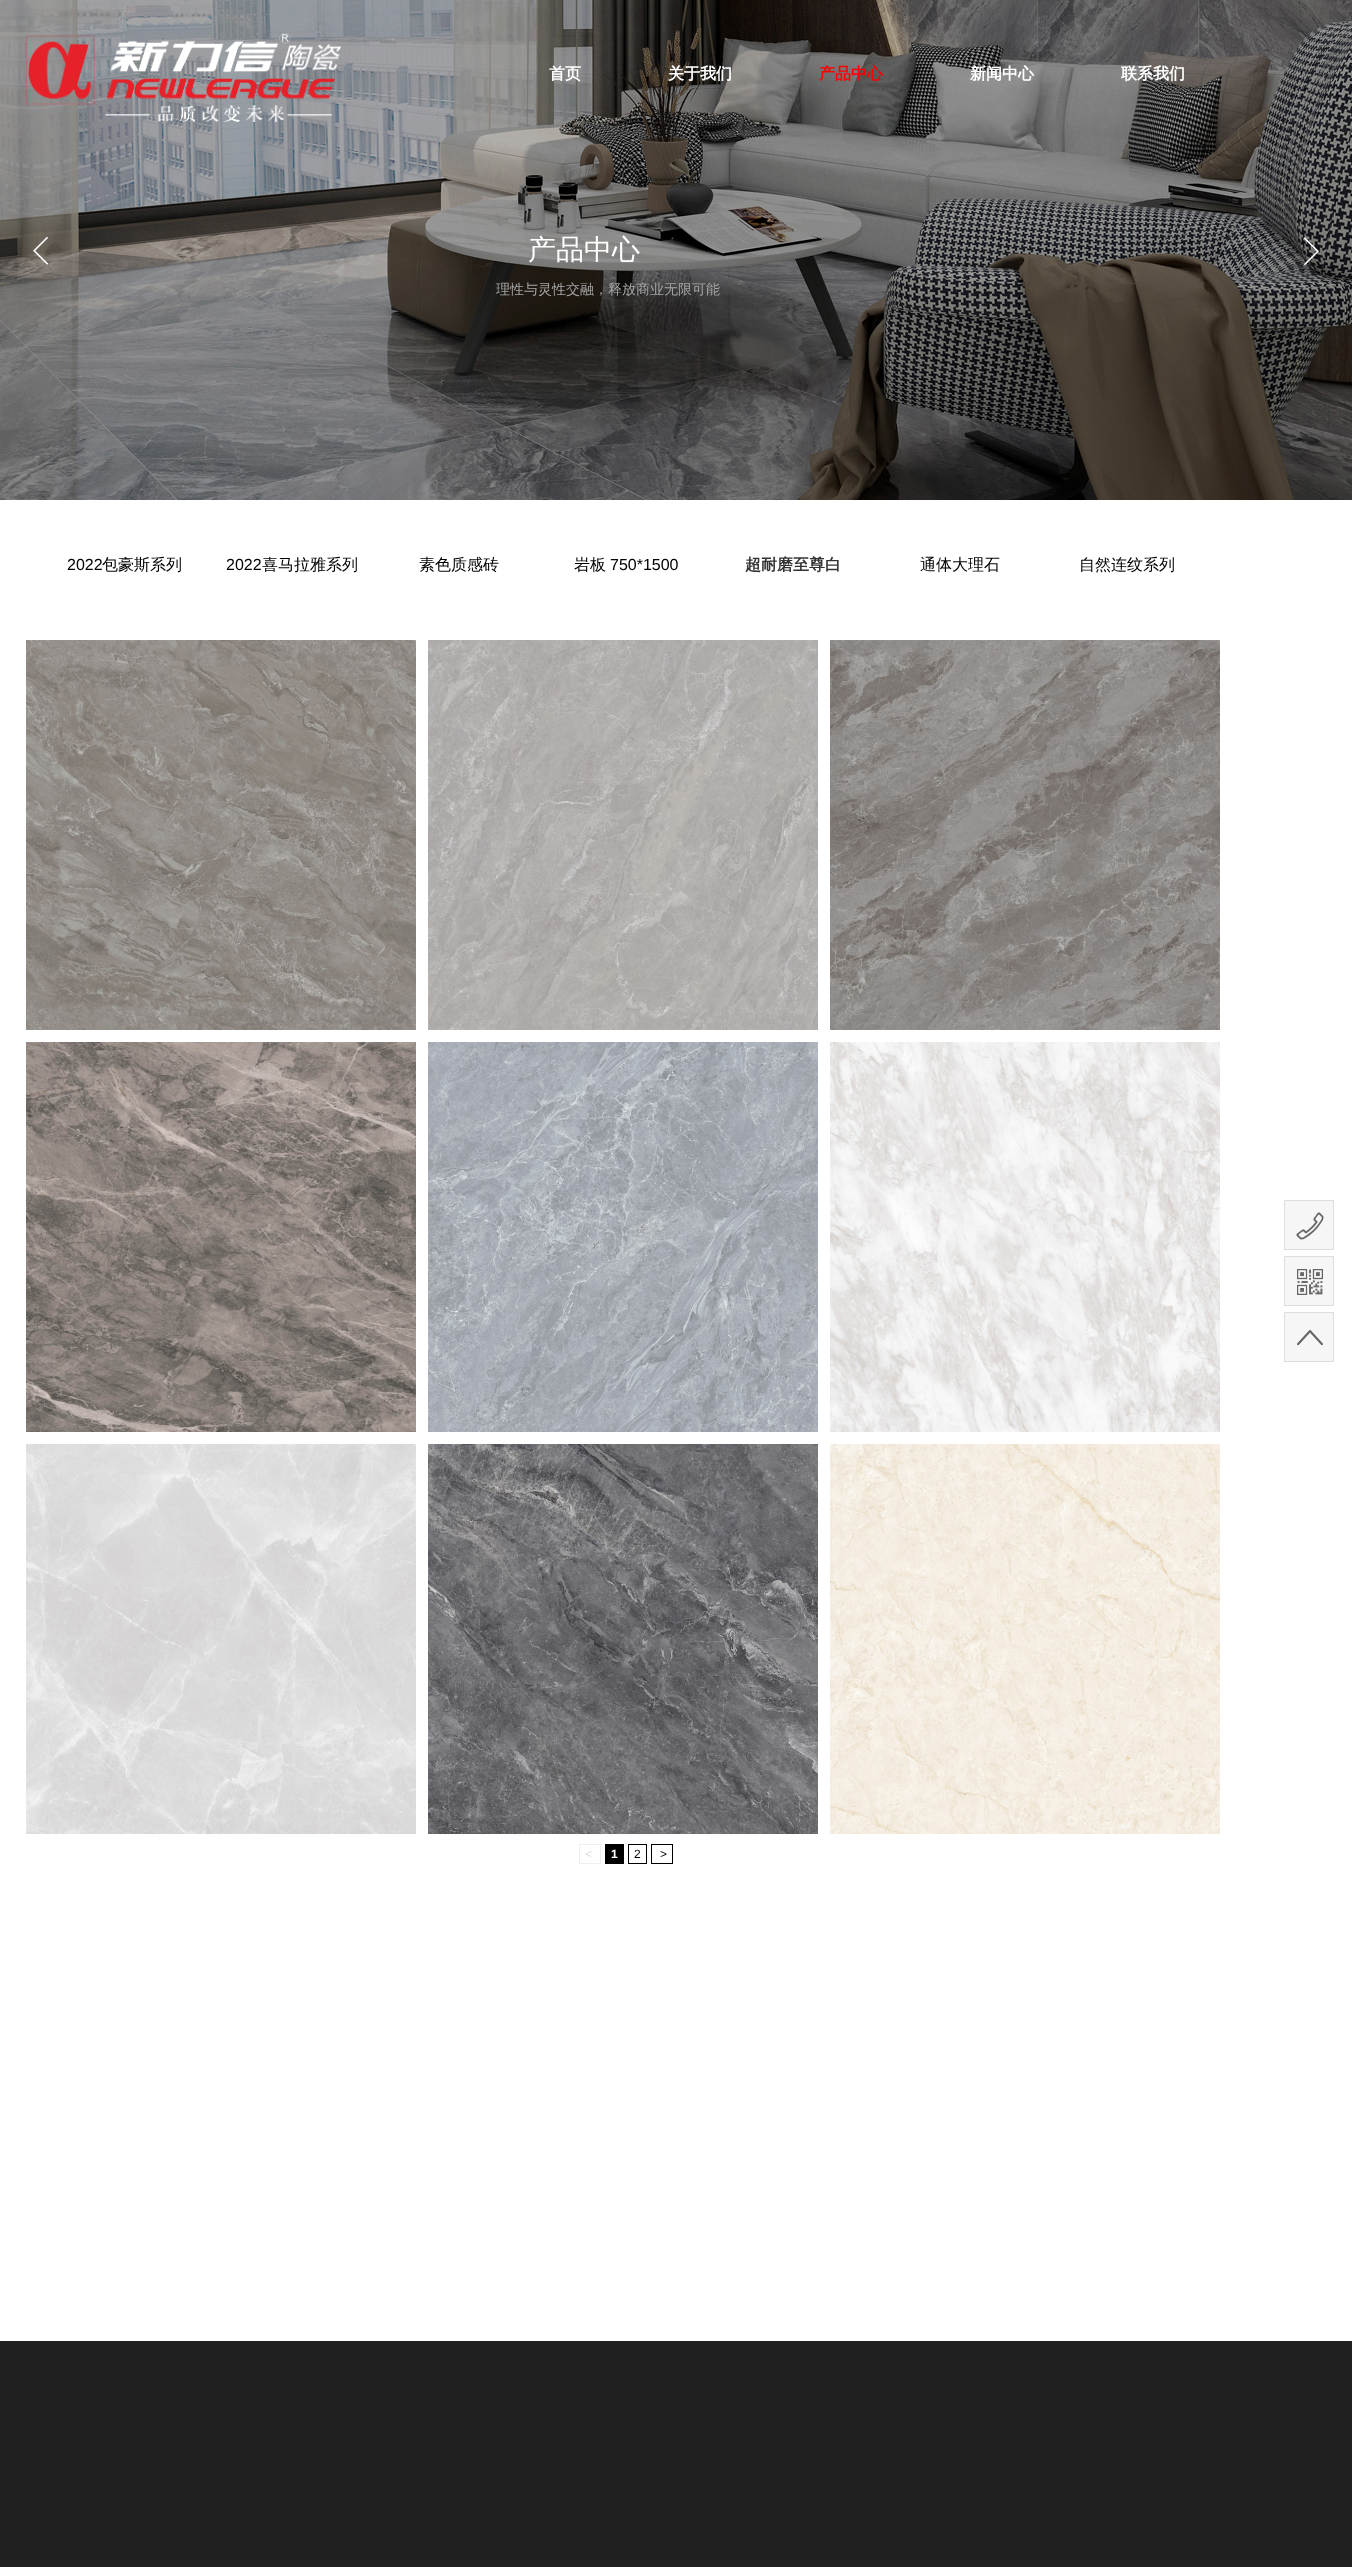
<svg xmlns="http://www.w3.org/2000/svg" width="1352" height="2567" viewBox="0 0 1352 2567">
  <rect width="100%" height="100%" fill="rgb(255,255,255)"/>
  <image x="0" y="0" width="1352" height="500" href="pic1.png"/>
  <image x="32" y="236" width="17" height="29" href="pic2.png"/>
  <image x="1303" y="237" width="17" height="29" href="pic3.png"/>
  <image x="26" y="33" width="315" height="89" href="pic4.png"/>
  <g font-family="WenQuanYi Zen Hei" font-size="16" font-weight="bold" fill="rgb(255,255,255)">
    <text x="549" y="79">首页</text>
    <text x="668" y="79">关于我们</text>
  </g>
  <text x="819" y="79" font-family="WenQuanYi Zen Hei" font-size="16" font-weight="bold" fill="rgb(255,0,0)">产品中心</text>
  <g font-family="WenQuanYi Zen Hei" font-size="16" font-weight="bold" fill="rgb(255,255,255)">
    <text x="970" y="79">新闻中心</text>
    <text x="1121" y="79">联系我们</text>
  </g>
  <text x="528" y="259" font-family="WenQuanYi Zen Hei" font-size="28" font-weight="500" fill="rgb(255,255,255)">产品中心</text>
  <text x="496" y="294" font-family="WenQuanYi Zen Hei" font-size="14" font-weight="500" fill="rgb(166,166,165)">理性与灵性交融，释放商业无限可能</text>
  <text x="67" y="570" font-family="Liberation Sans" font-size="16" fill="rgb(0,0,0)">2022</text>
  <text x="102" y="570" font-family="WenQuanYi Zen Hei" font-size="16" font-weight="500" fill="rgb(0,0,0)">包豪斯系列</text>
  <text x="226" y="570" font-family="Liberation Sans" font-size="16" fill="rgb(0,0,0)">2022</text>
  <g font-family="WenQuanYi Zen Hei" font-size="16" font-weight="500" fill="rgb(0,0,0)">
    <text x="262" y="570">喜马拉雅系列</text>
    <text x="419" y="570">素色质感砖</text>
    <text x="574" y="570">岩板</text>
  </g>
  <text x="610" y="570" font-family="Liberation Sans" font-size="16" fill="rgb(0,0,0)">750*1500</text>
  <text x="745" y="570" font-family="WenQuanYi Zen Hei" font-size="16" font-weight="bold" fill="rgb(51,51,51)">超耐磨至尊白</text>
  <g font-family="WenQuanYi Zen Hei" font-size="16" font-weight="500" fill="rgb(0,0,0)">
    <text x="920" y="570">通体大理石</text>
    <text x="1079" y="570">自然连纹系列</text>
  </g>
  <image x="26" y="640" width="390" height="390" href="pic5.png"/>
  <image x="428" y="640" width="390" height="390" href="pic6.png"/>
  <image x="830" y="640" width="390" height="390" href="pic7.png"/>
  <image x="26" y="1042" width="390" height="390" href="pic8.png"/>
  <image x="428" y="1042" width="390" height="390" href="pic9.png"/>
  <image x="830" y="1042" width="390" height="390" href="pic10.png"/>
  <image x="26" y="1444" width="390" height="390" href="pic11.png"/>
  <image x="428" y="1444" width="390" height="390" href="pic12.png"/>
  <image x="830" y="1444" width="390" height="390" href="pic13.png"/>
  <rect x="579.5" y="1844.5" width="21" height="19" fill="none" stroke="rgb(238,238,238)"/>
  <text x="585" y="1858" font-family="Liberation Sans" font-size="12" fill="rgb(221,221,221)">&lt;</text>
  <rect x="605" y="1844" width="19" height="20" fill="rgb(0,0,0)"/>
  <text x="611" y="1858" font-family="Liberation Sans" font-size="12" font-weight="bold" fill="rgb(255,255,255)">1</text>
  <rect x="628.5" y="1844.5" width="18" height="19" fill="none" stroke="rgb(0,0,0)"/>
  <text x="634" y="1858" font-family="Liberation Sans" font-size="12" fill="rgb(0,0,0)">2</text>
  <rect x="651.5" y="1844.5" width="21" height="19" fill="none" stroke="rgb(0,0,0)"/>
  <text x="660" y="1858" font-family="Liberation Sans" font-size="12" fill="rgb(0,0,0)">&gt;</text>
  <rect x="0" y="2341" width="1352" height="226" fill="rgb(32,32,32)"/>
  <rect x="1284.5" y="1200.5" width="49" height="49" fill="rgb(246,246,246)" stroke="rgb(221,221,221)"/>
  <image x="1296" y="1212" width="28" height="28" href="pic14.png"/>
  <rect x="1284.5" y="1256.5" width="49" height="49" fill="rgb(246,246,246)" stroke="rgb(221,221,221)"/>
  <image x="1297" y="1269" width="26" height="26" href="pic15.png"/>
  <rect x="1284.5" y="1312.5" width="49" height="49" fill="rgb(246,246,246)" stroke="rgb(221,221,221)"/>
  <image x="1297" y="1330" width="26" height="16" href="pic16.png"/>
</svg>
